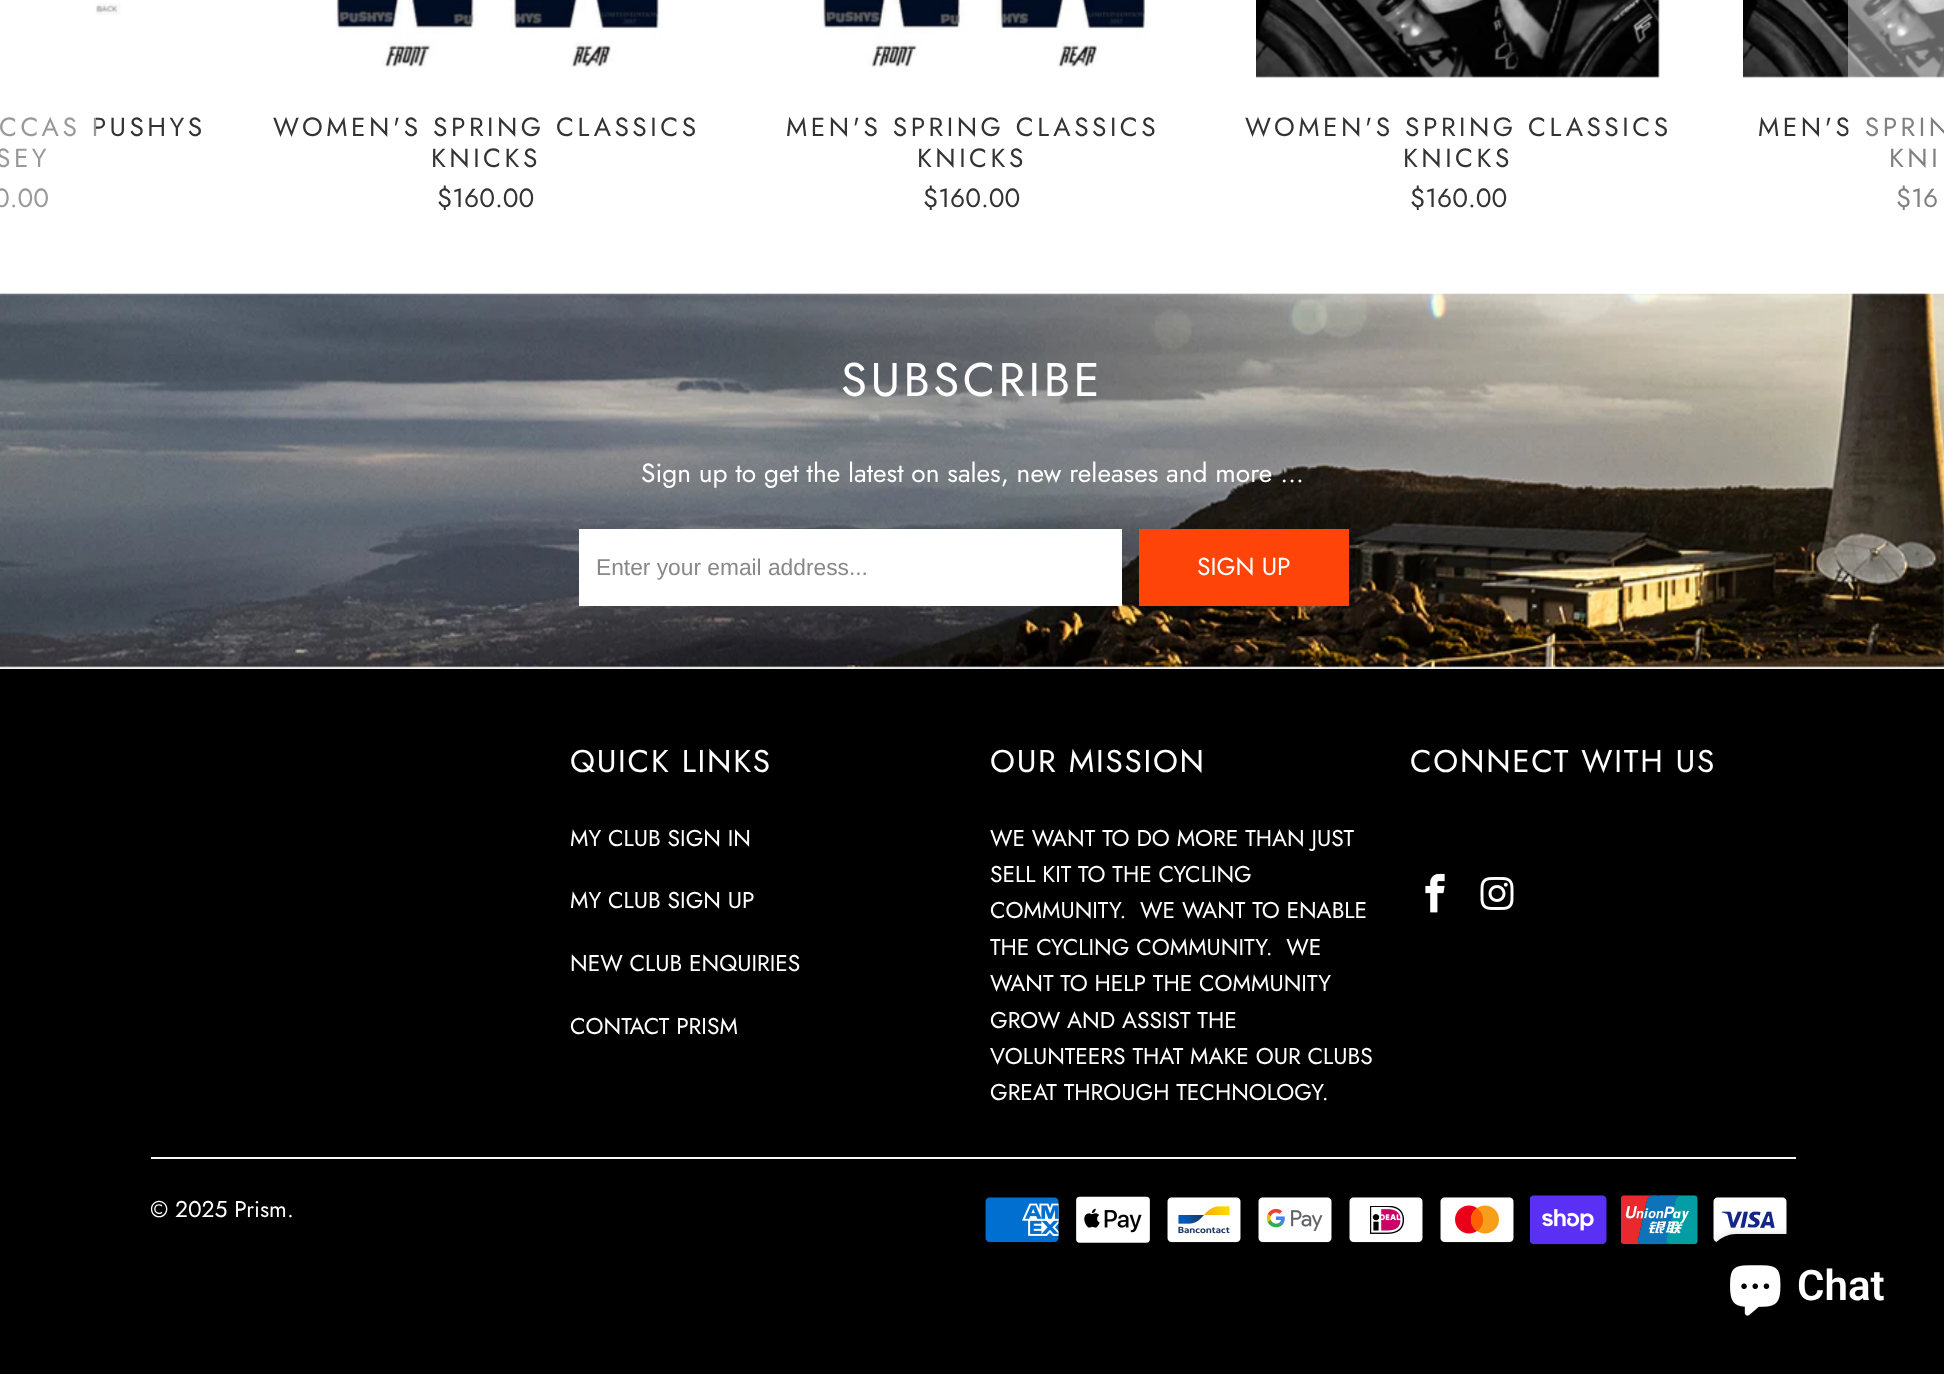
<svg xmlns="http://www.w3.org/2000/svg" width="1944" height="1374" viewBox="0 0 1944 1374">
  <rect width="100%" height="100%" fill="rgb(255,255,255)"/>
  <image x="95" y="3" width="26" height="12" href="pic1.png"/>
  <g font-family="Jost" font-size="26.25" letter-spacing="3.5" fill="rgb(51,51,51)">
    <text x="-1" y="136">CCAS PUSHYS</text>
    <text x="-4" y="167">SEY</text>
  </g>
  <text x="-6" y="207" font-family="Jost" font-size="26.25" fill="rgb(51,51,51)">0.00</text>
  <rect x="0" y="8" width="96" height="200" fill="rgba(255,255,255,0.5)"/>
  <image x="1743" y="0" width="201" height="78" href="pic5.png"/>
  <g font-family="Jost" font-size="26.25" letter-spacing="3.5" fill="rgb(51,51,51)">
    <text x="1758" y="136">MEN'S SPRIN</text>
    <text x="1889" y="167">KNI</text>
  </g>
  <text x="1896" y="207" font-family="Jost" font-size="26.25" fill="rgb(51,51,51)">$16</text>
  <rect x="1848" y="0" width="96" height="210" fill="rgba(255,255,255,0.38)"/>
  <image x="335" y="0" width="327" height="67" href="pic2.png"/>
  <g font-family="Jost" font-size="26.25" letter-spacing="3.5" fill="rgb(51,51,51)">
    <text x="273" y="136">WOMEN'S SPRING CLASSICS</text>
    <text x="431" y="167">KNICKS</text>
  </g>
  <text x="437" y="207" font-family="Jost" font-size="26.25" fill="rgb(51,51,51)">$160.00</text>
  <image x="820" y="0" width="328" height="67" href="pic3.png"/>
  <g font-family="Jost" font-size="26.25" letter-spacing="3.5" fill="rgb(51,51,51)">
    <text x="786" y="136">MEN'S SPRING CLASSICS</text>
    <text x="917" y="167">KNICKS</text>
  </g>
  <text x="923" y="207" font-family="Jost" font-size="26.25" fill="rgb(51,51,51)">$160.00</text>
  <image x="1256" y="0" width="404" height="78" href="pic4.png"/>
  <g font-family="Jost" font-size="26.25" letter-spacing="3.5" fill="rgb(51,51,51)">
    <text x="1245" y="136">WOMEN'S SPRING CLASSICS</text>
    <text x="1403" y="167">KNICKS</text>
  </g>
  <text x="1410" y="207" font-family="Jost" font-size="26.25" fill="rgb(51,51,51)">$160.00</text>
  <rect x="0" y="294" width="1944" height="373" fill="rgb(204,204,204)"/>
  <rect x="0" y="667" width="1944" height="2" fill="rgb(248,248,248)"/>
  <image x="0" y="293" width="1944" height="376" href="pic6.png"/>
  <text x="841" y="396" font-family="Jost" font-size="47.25" letter-spacing="3.5" fill="rgb(255,255,255)">SUBSCRIBE</text>
  <text x="641" y="482" font-family="Jost" font-size="26.25" fill="rgb(255,255,255)">Sign up to get the latest on sales, new releases and more …</text>
  <rect x="579" y="529" width="543" height="77" fill="rgb(255,255,255)"/>
  <text x="596" y="575" font-family="Liberation Sans" font-size="22.75" fill="rgb(136,136,136)">Enter your email address...</text>
  <rect x="1139" y="529" width="210" height="77" fill="rgb(255,68,10)"/>
  <text x="1197" y="575" font-family="Jost" font-size="24.5" fill="rgb(255,255,255)">SIGN UP</text>
  <rect x="0" y="669" width="1944" height="705" fill="rgb(0,0,0)"/>
  <text x="570" y="772" font-family="Jost" font-size="31.5" letter-spacing="1.75" fill="rgb(255,255,255)">QUICK LINKS</text>
  <g font-family="Jost" font-size="22.75" fill="rgb(255,255,255)">
    <text x="570" y="846">MY CLUB SIGN IN</text>
    <text x="570" y="908">MY CLUB SIGN UP</text>
    <text x="570" y="971">NEW CLUB ENQUIRIES</text>
    <text x="570" y="1034">CONTACT PRISM</text>
  </g>
  <text x="990" y="772" font-family="Jost" font-size="31.5" letter-spacing="1.75" fill="rgb(255,255,255)">OUR MISSION</text>
  <g font-family="Jost" font-size="22.75" fill="rgb(255,255,255)">
    <text xml:space="preserve"><tspan x="990" y="846">WE WANT TO DO MORE THAN JUST</tspan><tspan x="990" y="882">SELL KIT TO THE CYCLING</tspan><tspan x="990" y="918">COMMUNITY.  WE WANT TO ENABLE</tspan><tspan x="990" y="955">THE CYCLING COMMUNITY.  WE</tspan><tspan x="990" y="991">WANT TO HELP THE COMMUNITY</tspan><tspan x="990" y="1028">GROW AND ASSIST THE</tspan><tspan x="990" y="1064">VOLUNTEERS THAT MAKE OUR CLUBS</tspan><tspan x="990" y="1100">GREAT THROUGH TECHNOLOGY.</tspan></text>
  </g>
  <text x="1410" y="772" font-family="Jost" font-size="31.5" letter-spacing="1.75" fill="rgb(255,255,255)">CONNECT WITH US</text>
  <image x="1425" y="873" width="20" height="40" href="pic7.png"/>
  <image x="1480" y="877" width="34" height="33" href="pic8.png"/>
  <rect x="151" y="1157" width="1645" height="2" fill="rgb(248,248,248)"/>
  <g font-family="Jost" font-size="22.75" fill="rgb(255,255,255)">
    <text x="150" y="1217">© 2025 Prism</text>
    <text x="287" y="1217">.</text>
  </g>
  <image x="985" y="1197" width="74" height="46" href="pic9.png"/>
  <image x="1076" y="1196" width="74" height="47" href="pic10.png"/>
  <image x="1167" y="1197" width="74" height="46" href="pic11.png"/>
  <image x="1258" y="1197" width="74" height="46" href="pic12.png"/>
  <image x="1349" y="1197" width="74" height="46" href="pic13.png"/>
  <image x="1440" y="1197" width="74" height="46" href="pic14.png"/>
  <image x="1530" y="1195" width="77" height="50" href="pic15.png"/>
  <image x="1621" y="1195" width="77" height="50" href="pic16.png"/>
  <image x="1713" y="1197" width="74" height="46" href="pic17.png"/>
  <rect x="1708" y="1234" width="198" height="105" rx="28" fill="rgba(0,0,0,0.15)" filter="blur(4.5px)"/>
  <rect x="1708" y="1234" width="198" height="105" rx="28" fill="rgb(0,0,0)"/>
  <image x="1730" y="1265" width="51" height="51" href="pic18.png"/>
  <text x="1797" y="1300" font-family="Roboto" font-size="42" font-weight="600" fill="rgb(255,255,255)">Chat</text>
</svg>
